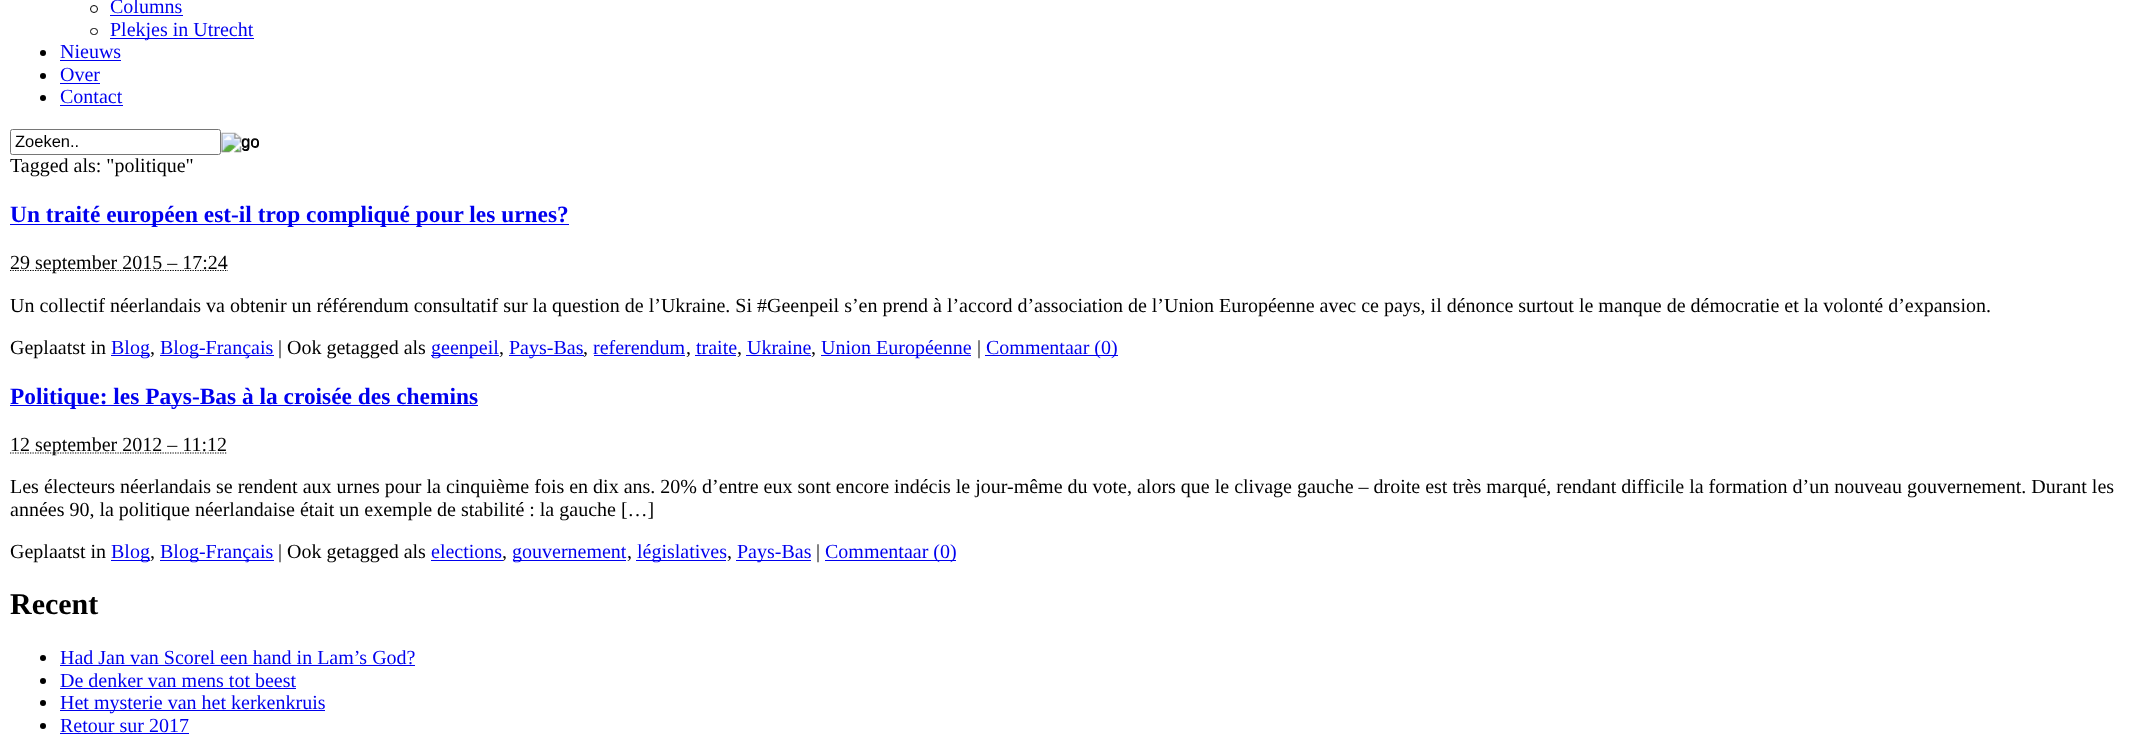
<svg xmlns="http://www.w3.org/2000/svg" width="2154" height="756" viewBox="0 0 2154 756">
  <rect width="100%" height="100%" fill="rgb(255,255,255)"/>
  <circle cx="94" cy="9" r="3.5" fill="none" stroke="rgb(0,0,0)"/>
  <text x="110" y="13" font-family="Liberation Serif" font-size="20" fill="rgb(0,0,238)">Columns</text>
  <rect x="110" y="15" width="73" height="1" fill="rgb(0,0,238)"/>
  <rect x="90.5" y="28.5" width="7" height="6" rx="3" fill="none" stroke="rgb(0,0,0)"/>
  <rect x="110" y="38" width="144" height="1" fill="rgb(0,0,238)"/>
  <text x="110" y="36" font-family="Liberation Serif" font-size="20" fill="rgb(0,0,238)">Plekjes in Utrecht</text>
  <circle cx="43" cy="53" r="3" fill="rgb(0,0,0)"/>
  <text x="60" y="58" font-family="Liberation Serif" font-size="20" fill="rgb(0,0,238)">Nieuws</text>
  <rect x="60" y="60" width="61" height="1" fill="rgb(0,0,238)"/>
  <circle cx="43" cy="76" r="3" fill="rgb(0,0,0)"/>
  <text x="60" y="81" font-family="Liberation Serif" font-size="20" fill="rgb(0,0,238)">Over</text>
  <rect x="60" y="83" width="40" height="1" fill="rgb(0,0,238)"/>
  <circle cx="43" cy="98" r="3" fill="rgb(0,0,0)"/>
  <text x="60" y="103" font-family="Liberation Serif" font-size="20" fill="rgb(0,0,238)">Contact</text>
  <rect x="60" y="105" width="63" height="1" fill="rgb(0,0,238)"/>
  <rect x="10.5" y="129.5" width="210" height="25" rx="2" fill="none" stroke="rgb(118,118,118)"/>
  <text x="15" y="147" font-family="Liberation Sans" font-size="16.5" fill="rgb(0,0,0)">Zoeken..</text>
  <image x="221" y="132" width="38" height="21" href="pic1.png"/>
  <text x="241" y="147" font-family="Liberation Sans" font-size="16.5" fill="rgb(0,0,0)">go</text>
  <text x="10" y="172" font-family="Liberation Serif" font-size="20" fill="rgb(0,0,0)">Tagged als: "politique"</text>
  <rect x="10" y="224" width="559" height="1" fill="rgb(0,0,238)"/>
  <text x="10" y="222" font-family="Liberation Serif" font-size="23.4" font-weight="bold" fill="rgb(0,0,238)">Un traité européen est-il trop compliqué pour les urnes?</text>
  <path d="M10 270.5H228" fill="none" stroke="rgb(0,0,0)" stroke-width="1.2" stroke-dasharray="1.25 1.25"/>
  <g font-family="Liberation Serif" font-size="20" fill="rgb(0,0,0)">
    <text x="10" y="269">29 september 2015 – 17:24</text>
    <text x="10" y="312">Un collectif néerlandais va obtenir un référendum consultatif sur la question de l’Ukraine. Si #Geenpeil s’en prend à l’accord d’association de l’Union Européenne avec ce pays, il dénonce surtout le manque de démocratie et la volonté d’expansion.</text>
    <text x="10" y="354">Geplaatst in</text>
  </g>
  <rect x="111" y="355" width="39" height="1" fill="rgb(0,0,238)"/>
  <text x="111" y="354" font-family="Liberation Serif" font-size="20" fill="rgb(0,0,238)">Blog</text>
  <text x="150" y="354" font-family="Liberation Serif" font-size="20" fill="rgb(0,0,0)">,</text>
  <rect x="160" y="355" width="114" height="1" fill="rgb(0,0,238)"/>
  <text x="160" y="354" font-family="Liberation Serif" font-size="20" fill="rgb(0,0,238)">Blog-Français</text>
  <text x="278" y="354" font-family="Liberation Serif" font-size="20" fill="rgb(0,0,0)">| Ook getagged als</text>
  <rect x="431" y="355" width="68" height="1" fill="rgb(0,0,238)"/>
  <text x="431" y="354" font-family="Liberation Serif" font-size="20" fill="rgb(0,0,238)">geenpeil</text>
  <text x="499" y="354" font-family="Liberation Serif" font-size="20" fill="rgb(0,0,0)">,</text>
  <rect x="509" y="355" width="75" height="1" fill="rgb(0,0,238)"/>
  <text x="509" y="354" font-family="Liberation Serif" font-size="20" fill="rgb(0,0,238)">Pays-Bas</text>
  <text x="583" y="354" font-family="Liberation Serif" font-size="20" fill="rgb(0,0,0)">,</text>
  <text x="593" y="354" font-family="Liberation Serif" font-size="20" fill="rgb(0,0,238)">referendum</text>
  <text x="686" y="354" font-family="Liberation Serif" font-size="20" fill="rgb(0,0,0)">,</text>
  <rect x="594" y="355" width="91" height="1" fill="rgb(0,0,238)"/>
  <text x="696" y="354" font-family="Liberation Serif" font-size="20" fill="rgb(0,0,238)">traite</text>
  <text x="737" y="354" font-family="Liberation Serif" font-size="20" fill="rgb(0,0,0)">,</text>
  <rect x="695" y="355" width="41" height="1" fill="rgb(0,0,238)"/>
  <text x="747" y="354" font-family="Liberation Serif" font-size="20" fill="rgb(0,0,238)">Ukraine</text>
  <text x="811" y="354" font-family="Liberation Serif" font-size="20" fill="rgb(0,0,0)">,</text>
  <rect x="746" y="355" width="65" height="1" fill="rgb(0,0,238)"/>
  <rect x="821" y="355" width="150" height="1" fill="rgb(0,0,238)"/>
  <text x="821" y="354" font-family="Liberation Serif" font-size="20" fill="rgb(0,0,238)">Union Européenne</text>
  <text x="977" y="354" font-family="Liberation Serif" font-size="20" fill="rgb(0,0,0)">|</text>
  <rect x="985" y="355" width="133" height="1" fill="rgb(0,0,238)"/>
  <text x="986" y="354" font-family="Liberation Serif" font-size="20" fill="rgb(0,0,238)">Commentaar (0)</text>
  <rect x="10" y="405" width="468" height="1" fill="rgb(0,0,238)"/>
  <text x="10" y="404" font-family="Liberation Serif" font-size="23.4" font-weight="bold" fill="rgb(0,0,238)">Politique: les Pays-Bas à la croisée des chemins</text>
  <path d="M10 453H227" fill="none" stroke="rgb(0,0,0)" stroke-width="1.2" stroke-dasharray="1.25 1.25"/>
  <g font-family="Liberation Serif" font-size="20" fill="rgb(0,0,0)">
    <text x="10" y="451">12 september 2012 – 11:12</text>
    <text>
      <tspan x="10" y="493">Les électeurs néerlandais se rendent aux urnes pour la cinquième fois en dix ans. 20% d’entre eux sont encore indécis le jour-même du vote, alors que le clivage gauche – droite est très marqué, rendant difficile la formation d’un nouveau gouvernement. Durant les</tspan>
      <tspan x="10" y="516">années 90, la politique néerlandaise était un exemple de stabilité : la gauche […]</tspan>
    </text>
    <text x="10" y="558">Geplaatst in</text>
  </g>
  <rect x="111" y="560" width="39" height="1" fill="rgb(0,0,238)"/>
  <text x="111" y="558" font-family="Liberation Serif" font-size="20" fill="rgb(0,0,238)">Blog</text>
  <text x="150" y="558" font-family="Liberation Serif" font-size="20" fill="rgb(0,0,0)">,</text>
  <rect x="160" y="560" width="114" height="1" fill="rgb(0,0,238)"/>
  <text x="160" y="558" font-family="Liberation Serif" font-size="20" fill="rgb(0,0,238)">Blog-Français</text>
  <text x="278" y="558" font-family="Liberation Serif" font-size="20" fill="rgb(0,0,0)">| Ook getagged als</text>
  <text x="431" y="558" font-family="Liberation Serif" font-size="20" fill="rgb(0,0,238)">elections</text>
  <text x="502" y="558" font-family="Liberation Serif" font-size="20" fill="rgb(0,0,0)">,</text>
  <rect x="431" y="560" width="72" height="1" fill="rgb(0,0,238)"/>
  <rect x="513" y="560" width="113" height="1" fill="rgb(0,0,238)"/>
  <text x="512" y="558" font-family="Liberation Serif" font-size="20" fill="rgb(0,0,238)">gouvernement</text>
  <text x="627" y="558" font-family="Liberation Serif" font-size="20" fill="rgb(0,0,0)">,</text>
  <rect x="636" y="560" width="90" height="1" fill="rgb(0,0,238)"/>
  <text x="637" y="558" font-family="Liberation Serif" font-size="20" fill="rgb(0,0,238)">législatives</text>
  <text x="727" y="558" font-family="Liberation Serif" font-size="20" fill="rgb(0,0,0)">,</text>
  <rect x="736" y="560" width="75" height="1" fill="rgb(0,0,238)"/>
  <text x="737" y="558" font-family="Liberation Serif" font-size="20" fill="rgb(0,0,238)">Pays-Bas</text>
  <text x="816" y="558" font-family="Liberation Serif" font-size="20" fill="rgb(0,0,0)">|</text>
  <rect x="825" y="560" width="131" height="1" fill="rgb(0,0,238)"/>
  <text x="825" y="558" font-family="Liberation Serif" font-size="20" fill="rgb(0,0,238)">Commentaar (0)</text>
  <text x="10" y="614" font-family="Liberation Serif" font-size="30" font-weight="bold" fill="rgb(0,0,0)">Recent</text>
  <circle cx="43" cy="658" r="3" fill="rgb(0,0,0)"/>
  <text x="60" y="664" font-family="Liberation Serif" font-size="20" fill="rgb(0,0,238)">Had Jan van Scorel een hand in Lam’s God?</text>
  <rect x="60" y="665" width="355" height="1" fill="rgb(0,0,238)"/>
  <circle cx="43" cy="681" r="3" fill="rgb(0,0,0)"/>
  <text x="60" y="687" font-family="Liberation Serif" font-size="20" fill="rgb(0,0,238)">De denker van mens tot beest</text>
  <rect x="60" y="688" width="236" height="1" fill="rgb(0,0,238)"/>
  <circle cx="43" cy="703" r="3" fill="rgb(0,0,0)"/>
  <rect x="60" y="710" width="265" height="1" fill="rgb(0,0,238)"/>
  <text x="60" y="709" font-family="Liberation Serif" font-size="20" fill="rgb(0,0,238)">Het mysterie van het kerkenkruis</text>
  <circle cx="43" cy="726" r="3" fill="rgb(0,0,0)"/>
  <text x="60" y="732" font-family="Liberation Serif" font-size="20" fill="rgb(0,0,238)">Retour sur 2017</text>
  <rect x="60" y="733" width="129" height="1" fill="rgb(0,0,238)"/>
</svg>
